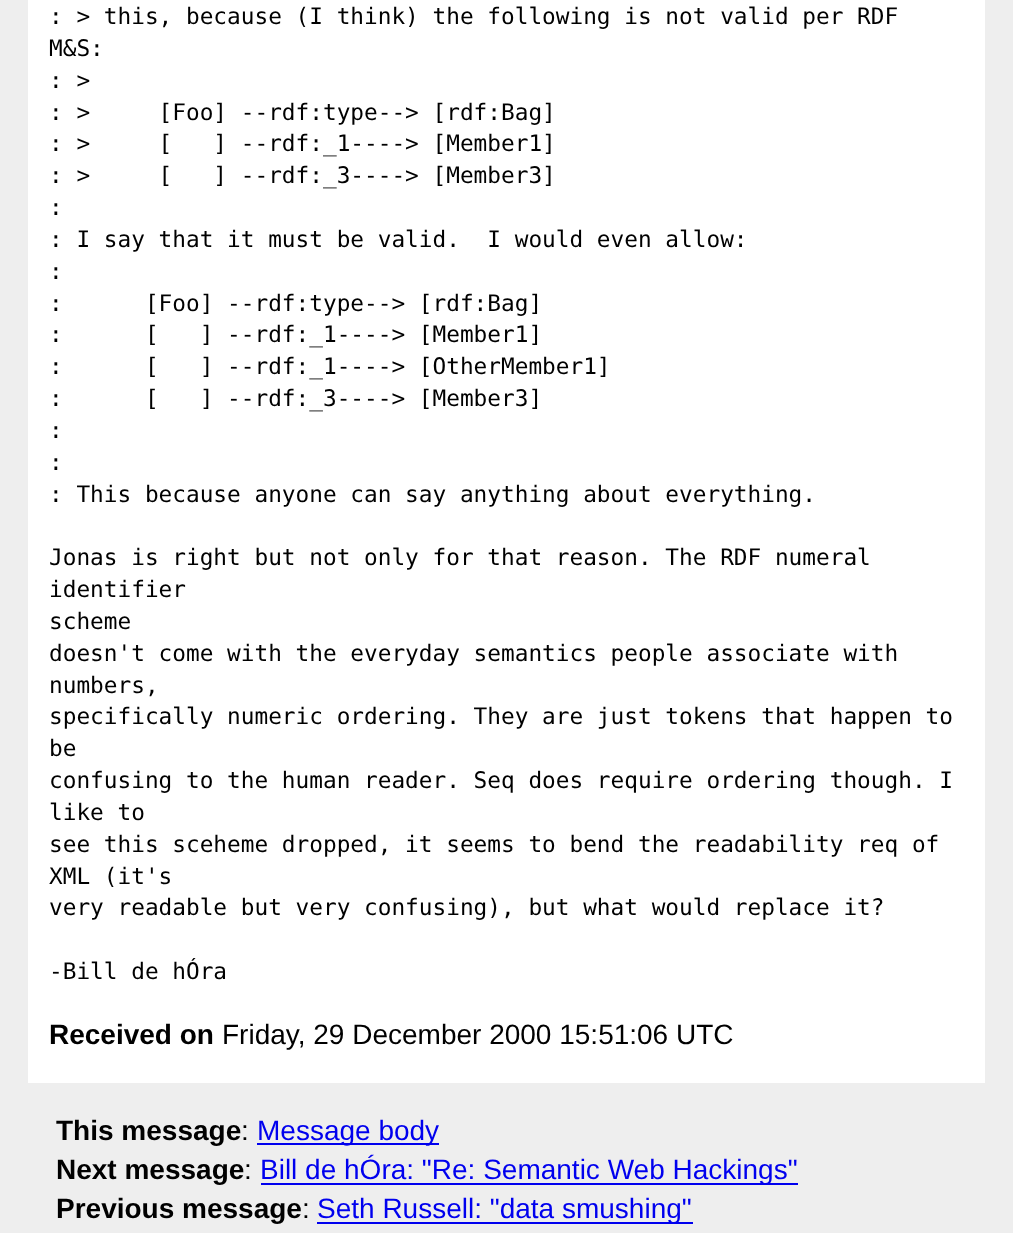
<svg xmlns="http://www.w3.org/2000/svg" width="1013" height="1233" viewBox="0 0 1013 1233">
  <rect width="100%" height="100%" fill="rgb(238,238,238)"/>
  <rect x="28" y="0" width="957" height="1083" fill="rgb(255,255,255)"/>
  <g font-family="DejaVu Sans Mono" font-size="22.75" fill="rgb(0,0,0)">
    <text xml:space="preserve"><tspan x="49" y="24">: &gt; this, because (I think) the following is not valid per RDF</tspan><tspan x="49" y="56">M&amp;S:</tspan><tspan x="49" y="88">: &gt;</tspan><tspan x="49" y="120">: &gt;     [Foo] --rdf:type--&gt; [rdf:Bag]</tspan><tspan x="49" y="151">: &gt;     [   ] --rdf:_1----&gt; [Member1]</tspan><tspan x="49" y="183">: &gt;     [   ] --rdf:_3----&gt; [Member3]</tspan><tspan x="49" y="215">:</tspan><tspan x="49" y="247">: I say that it must be valid.  I would even allow:</tspan><tspan x="49" y="279">:</tspan><tspan x="49" y="311">:      [Foo] --rdf:type--&gt; [rdf:Bag]</tspan><tspan x="49" y="342">:      [   ] --rdf:_1----&gt; [Member1]</tspan><tspan x="49" y="374">:      [   ] --rdf:_1----&gt; [OtherMember1]</tspan><tspan x="49" y="406">:      [   ] --rdf:_3----&gt; [Member3]</tspan><tspan x="49" y="438">:</tspan><tspan x="49" y="470">:</tspan><tspan x="49" y="502">: This because anyone can say anything about everything.</tspan></text>
    <text>
      <tspan x="49" y="565">Jonas is right but not only for that reason. The RDF numeral</tspan>
      <tspan x="49" y="597">identifier</tspan>
      <tspan x="49" y="629">scheme</tspan>
      <tspan x="49" y="661">doesn't come with the everyday semantics people associate with</tspan>
      <tspan x="49" y="693">numbers,</tspan>
      <tspan x="49" y="724">specifically numeric ordering. They are just tokens that happen to</tspan>
      <tspan x="49" y="756">be</tspan>
      <tspan x="49" y="788">confusing to the human reader. Seq does require ordering though. I</tspan>
      <tspan x="49" y="820">like to</tspan>
      <tspan x="49" y="852">see this sceheme dropped, it seems to bend the readability req of</tspan>
      <tspan x="49" y="884">XML (it's</tspan>
      <tspan x="49" y="915">very readable but very confusing), but what would replace it?</tspan>
    </text>
    <text x="49" y="979">-Bill de hÓra</text>
  </g>
  <text x="49" y="1044" font-family="Liberation Sans" font-size="28" font-weight="bold" fill="rgb(0,0,0)">Received on</text>
  <text x="222" y="1044" font-family="Liberation Sans" font-size="28" fill="rgb(0,0,0)">Friday, 29 December 2000 15:51:06 UTC</text>
  <text x="56" y="1140" font-family="Liberation Sans" font-size="28" font-weight="bold" fill="rgb(0,0,0)">This message</text>
  <text x="241" y="1140" font-family="Liberation Sans" font-size="28" fill="rgb(0,0,0)">:</text>
  <rect x="257" y="1143" width="182" height="2" fill="rgb(0,0,238)"/>
  <text x="257" y="1140" font-family="Liberation Sans" font-size="28" fill="rgb(0,0,238)">Message body</text>
  <text x="56" y="1179" font-family="Liberation Sans" font-size="28" font-weight="bold" fill="rgb(0,0,0)">Next message</text>
  <text x="244" y="1179" font-family="Liberation Sans" font-size="28" fill="rgb(0,0,0)">:</text>
  <rect x="261" y="1183" width="537" height="2" fill="rgb(0,0,238)"/>
  <text x="260" y="1179" font-family="Liberation Sans" font-size="28" fill="rgb(0,0,238)">Bill de hÓra: "Re: Semantic Web Hackings"</text>
  <text x="56" y="1218" font-family="Liberation Sans" font-size="28" font-weight="bold" fill="rgb(0,0,0)">Previous message</text>
  <text x="302" y="1218" font-family="Liberation Sans" font-size="28" fill="rgb(0,0,0)">:</text>
  <rect x="317" y="1222" width="376" height="2" fill="rgb(0,0,238)"/>
  <text x="317" y="1218" font-family="Liberation Sans" font-size="28" fill="rgb(0,0,238)">Seth Russell: "data smushing"</text>
</svg>
